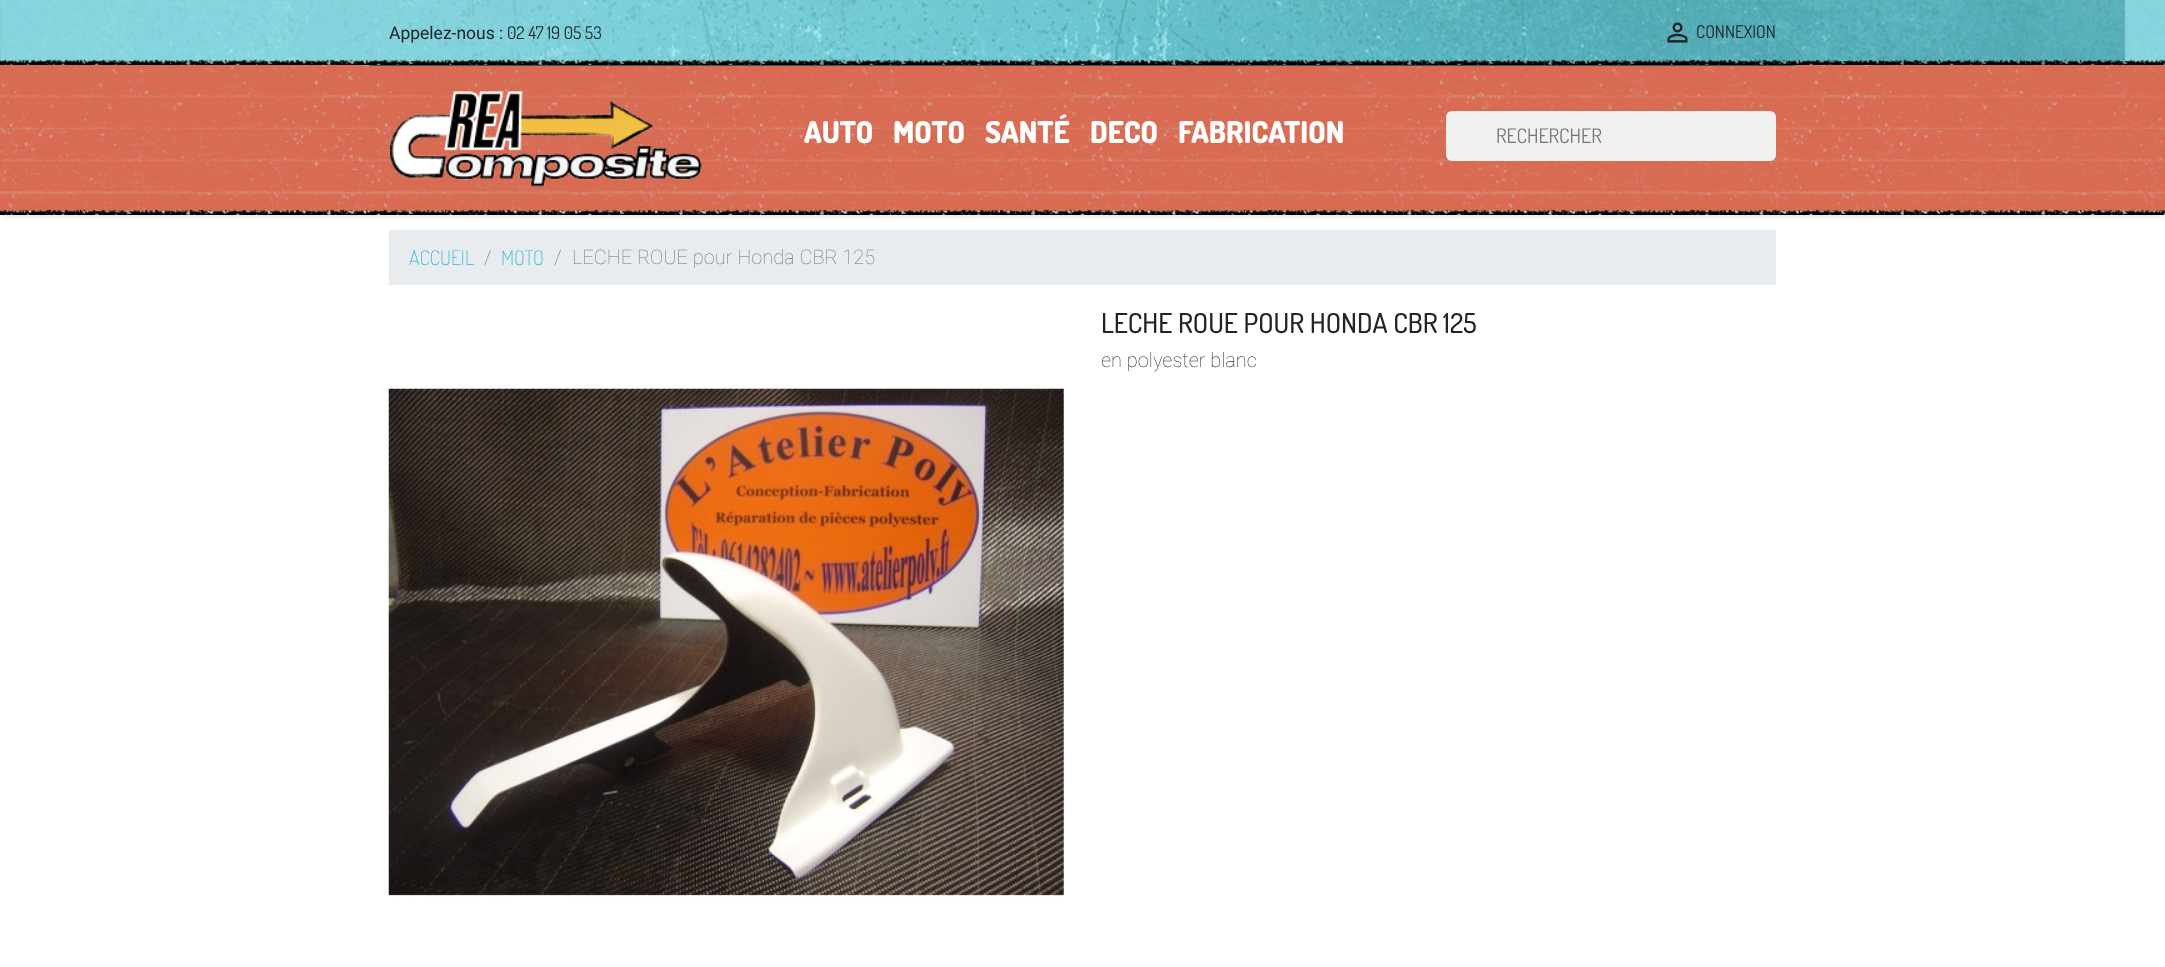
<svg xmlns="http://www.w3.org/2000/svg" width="2165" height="967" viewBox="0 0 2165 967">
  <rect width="100%" height="100%" fill="rgb(255,255,255)"/>
  <rect x="0" y="3" width="2165" height="211" fill="rgba(0,0,0,0.2)" filter="blur(4px)"/>
  <rect x="0" y="0" width="2165" height="211" fill="rgb(217,107,82)"/>
  <image x="0" y="0" width="2165" height="212" href="pic1.png"/>
  <image x="0" y="0" width="2165" height="65" href="pic2.png"/>
  <text x="389" y="39" font-family="Roboto" font-size="17.5" fill="rgb(33,37,41)">Appelez-nous :</text>
  <text x="507" y="39" font-family="Dosis" font-size="17.5" fill="rgb(33,37,41)">02 47 19 05 53</text>
  <image x="1667" y="22" width="21" height="21" href="pic3.png"/>
  <text x="1696" y="38" font-family="Dosis" font-size="17.5" fill="rgb(33,37,41)">CONNEXION</text>
  <image x="0" y="58" width="2165" height="7" href="pic4.png"/>
  <rect x="370" y="65" width="1425" height="1" fill="rgb(77,76,76)"/>
  <image x="388" y="91" width="314" height="96" href="pic5.png"/>
  <g font-family="Dosis" font-size="30" font-weight="800" fill="rgb(255,255,255)">
    <text x="804" y="143">AUTO</text>
    <text x="893" y="143">MOTO</text>
    <text x="985" y="143">SANTÉ</text>
    <text x="1090" y="143">DECO</text>
    <text x="1178" y="143">FABRICATION</text>
  </g>
  <rect x="1446" y="111" width="330" height="50" rx="6" fill="rgb(241,241,241)"/>
  <text x="1496" y="143" font-family="Dosis" font-size="20" fill="rgb(117,117,117)">RECHERCHER</text>
  <image x="0" y="208" width="2165" height="7" href="pic6.png"/>
  <rect x="389" y="230" width="1387" height="55" fill="rgb(233,236,239)"/>
  <text x="409" y="265" font-family="Dosis" font-size="20" font-weight="200" fill="rgb(47,181,210)">ACCUEIL</text>
  <text x="484" y="264" font-family="Roboto" font-size="20" font-weight="100" fill="rgb(108,117,125)">/</text>
  <text x="501" y="265" font-family="Dosis" font-size="20" font-weight="200" fill="rgb(47,181,210)">MOTO</text>
  <g font-family="Roboto" font-size="20" font-weight="100" fill="rgb(108,117,125)">
    <text x="554" y="264">/</text>
    <text x="572" y="264">LECHE ROUE pour Honda CBR 125</text>
  </g>
  <text x="1101" y="333" font-family="Dosis" font-size="27.5" font-weight="500" fill="rgb(33,37,41)">LECHE ROUE POUR HONDA CBR 125</text>
  <text x="1101" y="367" font-family="Roboto" font-size="20" font-weight="100" fill="rgb(33,37,41)">en polyester blanc</text>
  <image x="388" y="385" width="676" height="520" href="pic7.png"/>
</svg>
